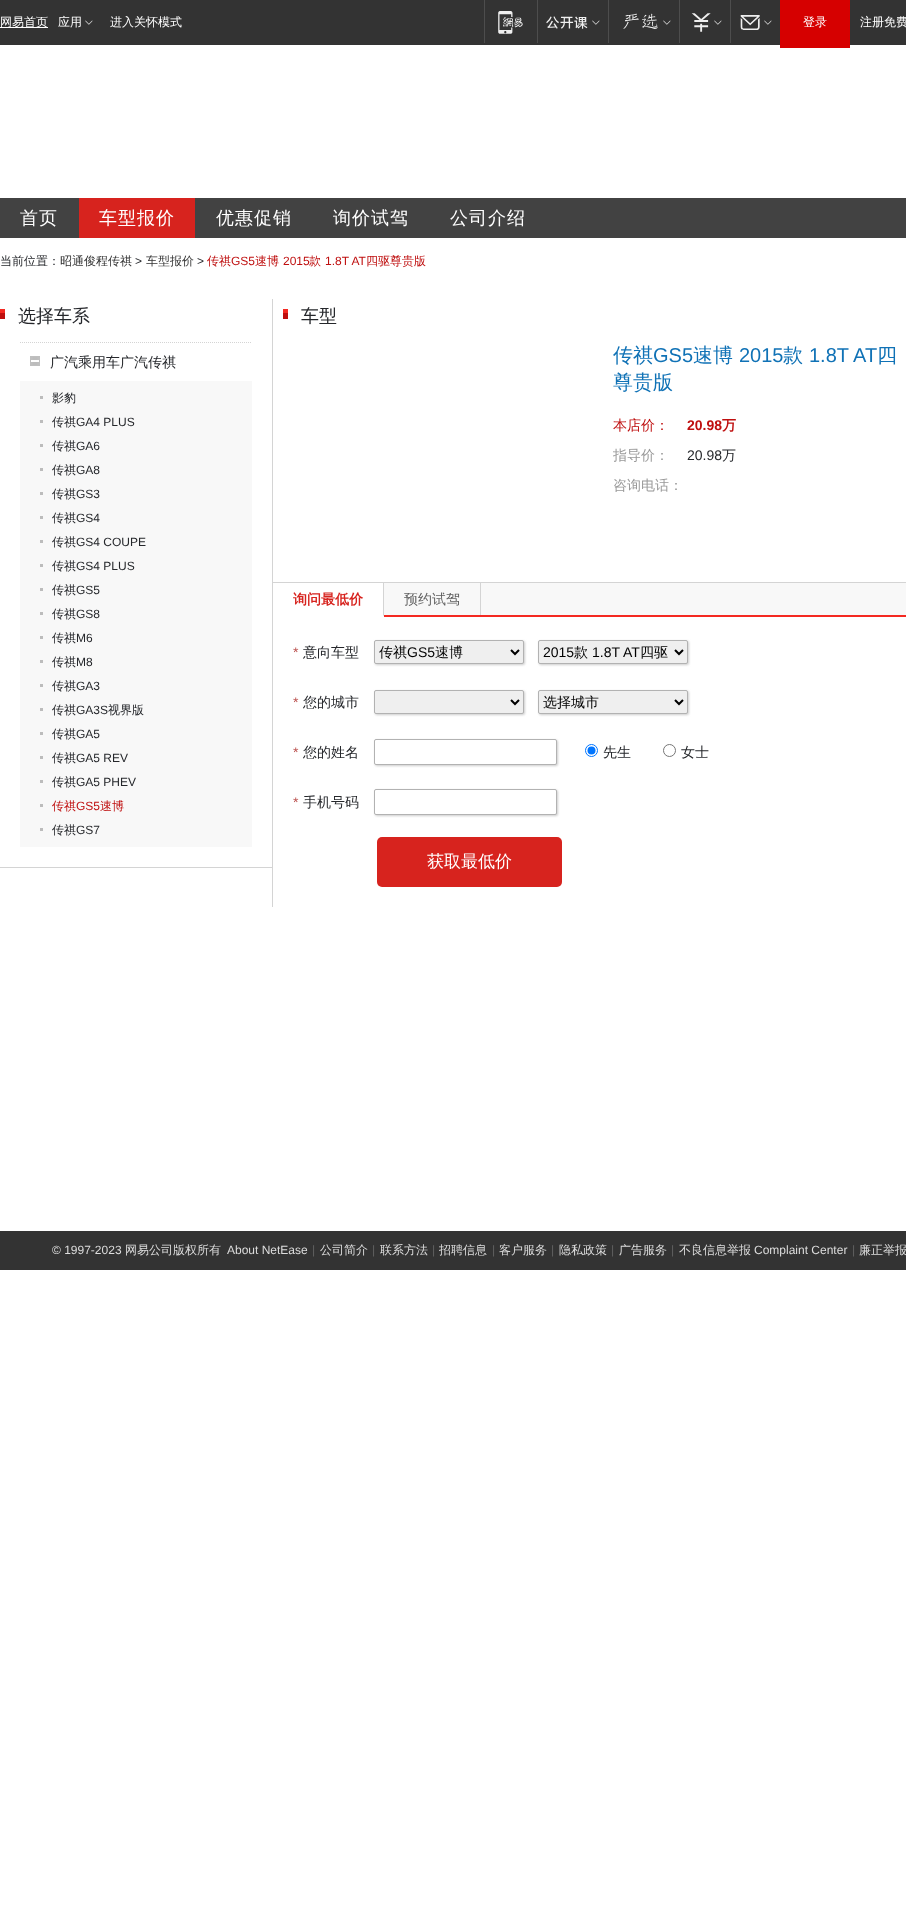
<svg xmlns="http://www.w3.org/2000/svg" width="906" height="1905" viewBox="0 0 906 1905">
  <rect width="100%" height="100%" fill="rgb(255,255,255)"/>
  <rect x="0" y="0" width="906" height="45" fill="rgb(51,51,51)"/>
  <rect x="0" y="27" width="48" height="1" fill="rgb(255,255,255)"/>
  <g font-family="WenQuanYi Zen Hei" font-size="12" font-weight="500" fill="rgb(255,255,255)">
    <text x="0" y="26">网易首页</text>
    <text x="58" y="26">应用</text>
  </g>
  <image x="85" y="20" width="8" height="5" href="pic1.png"/>
  <text x="110" y="26" font-family="WenQuanYi Zen Hei" font-size="12" font-weight="500" fill="rgb(255,255,255)">进入关怀模式</text>
  <rect x="484" y="0" width="1" height="43" fill="rgb(77,77,77)"/>
  <image x="498" y="11" width="25" height="23" href="pic2.png"/>
  <rect x="537" y="0" width="1" height="43" fill="rgb(77,77,77)"/>
  <image x="546" y="16" width="42" height="13" href="pic3.png"/>
  <image x="592" y="20" width="8" height="5" href="pic1.png"/>
  <rect x="608" y="0" width="1" height="43" fill="rgb(77,77,77)"/>
  <image x="623" y="13" width="35" height="16" href="pic4.png"/>
  <image x="663" y="20" width="8" height="5" href="pic1.png"/>
  <rect x="679" y="0" width="1" height="43" fill="rgb(77,77,77)"/>
  <image x="691" y="13" width="20" height="19" href="pic5.png"/>
  <image x="714" y="20" width="8" height="5" href="pic1.png"/>
  <rect x="730" y="0" width="1" height="43" fill="rgb(77,77,77)"/>
  <image x="740" y="15" width="20" height="15" href="pic6.png"/>
  <image x="764" y="20" width="8" height="5" href="pic1.png"/>
  <rect x="780" y="0" width="70" height="48" fill="rgb(214,0,0)"/>
  <g font-family="WenQuanYi Zen Hei" font-size="12" font-weight="500" fill="rgb(255,255,255)">
    <text x="803" y="26">登录</text>
    <text x="860" y="26">注册免费</text>
  </g>
  <rect x="0" y="198" width="906" height="40" fill="rgb(66,66,66)"/>
  <text x="20" y="224" font-family="WenQuanYi Zen Hei" font-size="18" font-weight="500" letter-spacing="1" fill="rgb(255,255,255)">首页</text>
  <rect x="79" y="198" width="116" height="40" fill="rgb(215,35,30)"/>
  <g font-family="WenQuanYi Zen Hei" font-size="18" font-weight="500" letter-spacing="1" fill="rgb(255,255,255)">
    <text x="99" y="224">车型报价</text>
    <text x="216" y="224">优惠促销</text>
    <text x="333" y="224">询价试驾</text>
    <text x="450" y="224">公司介绍</text>
  </g>
  <text x="0" y="265" font-family="WenQuanYi Zen Hei" font-size="12" font-weight="500" fill="rgb(37,39,43)">当前位置：</text>
  <text x="60" y="265" font-family="WenQuanYi Zen Hei" font-size="12" font-weight="500" fill="rgb(51,51,51)">昭通俊程传祺</text>
  <text x="135" y="265" font-family="Liberation Sans" font-size="12" fill="rgb(37,39,43)">&gt;</text>
  <text x="146" y="265" font-family="WenQuanYi Zen Hei" font-size="12" font-weight="500" fill="rgb(51,51,51)">车型报价</text>
  <text x="197" y="265" font-family="Liberation Sans" font-size="12" fill="rgb(37,39,43)">&gt;</text>
  <text x="207" y="265" font-family="WenQuanYi Zen Hei" font-size="12" font-weight="500" fill="rgb(191,15,15)">传祺</text>
  <text x="231" y="265" font-family="Liberation Sans" font-size="12" fill="rgb(191,15,15)">GS5</text>
  <text x="255" y="265" font-family="WenQuanYi Zen Hei" font-size="12" font-weight="500" fill="rgb(191,15,15)">速博</text>
  <text x="283" y="265" font-family="Liberation Sans" font-size="12" fill="rgb(191,15,15)">2015</text>
  <text x="309" y="265" font-family="WenQuanYi Zen Hei" font-size="12" font-weight="500" fill="rgb(191,15,15)">款</text>
  <text x="325" y="265" font-family="Liberation Sans" font-size="12" fill="rgb(191,15,15)">1.8T AT</text>
  <text x="366" y="265" font-family="WenQuanYi Zen Hei" font-size="12" font-weight="500" fill="rgb(191,15,15)">四驱尊贵版</text>
  <rect x="0" y="867" width="272" height="1" fill="rgb(212,212,212)"/>
  <image x="0" y="309" width="5" height="10" href="pic7.png"/>
  <text x="18" y="322" font-family="WenQuanYi Zen Hei" font-size="18" font-weight="500" fill="rgb(37,39,43)">选择车系</text>
  <path d="M20 342.5H252" fill="none" stroke="rgb(212,212,212)" stroke-dasharray="1 1"/>
  <image x="30" y="356" width="10" height="10" href="pic8.png"/>
  <text x="50" y="367" font-family="WenQuanYi Zen Hei" font-size="14" font-weight="500" fill="rgb(37,39,43)">广汽乘用车广汽传祺</text>
  <rect x="20" y="381" width="232" height="466" fill="rgb(248,248,248)"/>
  <text x="52" y="402" font-family="WenQuanYi Zen Hei" font-size="12" font-weight="500" fill="rgb(37,39,43)">影豹</text>
  <rect x="40" y="396" width="3" height="3" fill="rgb(188,188,188)"/>
  <text x="52" y="426" font-family="WenQuanYi Zen Hei" font-size="12" font-weight="500" fill="rgb(37,39,43)">传祺</text>
  <rect x="40" y="420" width="3" height="3" fill="rgb(188,188,188)"/>
  <text x="76" y="426" font-family="Liberation Sans" font-size="12" fill="rgb(37,39,43)">GA4 PLUS</text>
  <text x="52" y="450" font-family="WenQuanYi Zen Hei" font-size="12" font-weight="500" fill="rgb(37,39,43)">传祺</text>
  <rect x="40" y="444" width="3" height="3" fill="rgb(188,188,188)"/>
  <text x="76" y="450" font-family="Liberation Sans" font-size="12" fill="rgb(37,39,43)">GA6</text>
  <text x="52" y="474" font-family="WenQuanYi Zen Hei" font-size="12" font-weight="500" fill="rgb(37,39,43)">传祺</text>
  <rect x="40" y="468" width="3" height="3" fill="rgb(188,188,188)"/>
  <text x="76" y="474" font-family="Liberation Sans" font-size="12" fill="rgb(37,39,43)">GA8</text>
  <text x="52" y="498" font-family="WenQuanYi Zen Hei" font-size="12" font-weight="500" fill="rgb(37,39,43)">传祺</text>
  <rect x="40" y="492" width="3" height="3" fill="rgb(188,188,188)"/>
  <text x="76" y="498" font-family="Liberation Sans" font-size="12" fill="rgb(37,39,43)">GS3</text>
  <text x="52" y="522" font-family="WenQuanYi Zen Hei" font-size="12" font-weight="500" fill="rgb(37,39,43)">传祺</text>
  <rect x="40" y="516" width="3" height="3" fill="rgb(188,188,188)"/>
  <text x="76" y="522" font-family="Liberation Sans" font-size="12" fill="rgb(37,39,43)">GS4</text>
  <text x="52" y="546" font-family="WenQuanYi Zen Hei" font-size="12" font-weight="500" fill="rgb(37,39,43)">传祺</text>
  <rect x="40" y="540" width="3" height="3" fill="rgb(188,188,188)"/>
  <text x="76" y="546" font-family="Liberation Sans" font-size="12" fill="rgb(37,39,43)">GS4 COUPE</text>
  <text x="52" y="570" font-family="WenQuanYi Zen Hei" font-size="12" font-weight="500" fill="rgb(37,39,43)">传祺</text>
  <rect x="40" y="564" width="3" height="3" fill="rgb(188,188,188)"/>
  <text x="76" y="570" font-family="Liberation Sans" font-size="12" fill="rgb(37,39,43)">GS4 PLUS</text>
  <text x="52" y="594" font-family="WenQuanYi Zen Hei" font-size="12" font-weight="500" fill="rgb(37,39,43)">传祺</text>
  <rect x="40" y="588" width="3" height="3" fill="rgb(188,188,188)"/>
  <text x="76" y="594" font-family="Liberation Sans" font-size="12" fill="rgb(37,39,43)">GS5</text>
  <text x="52" y="618" font-family="WenQuanYi Zen Hei" font-size="12" font-weight="500" fill="rgb(37,39,43)">传祺</text>
  <rect x="40" y="612" width="3" height="3" fill="rgb(188,188,188)"/>
  <text x="76" y="618" font-family="Liberation Sans" font-size="12" fill="rgb(37,39,43)">GS8</text>
  <text x="52" y="642" font-family="WenQuanYi Zen Hei" font-size="12" font-weight="500" fill="rgb(37,39,43)">传祺</text>
  <rect x="40" y="636" width="3" height="3" fill="rgb(188,188,188)"/>
  <text x="76" y="642" font-family="Liberation Sans" font-size="12" fill="rgb(37,39,43)">M6</text>
  <text x="52" y="666" font-family="WenQuanYi Zen Hei" font-size="12" font-weight="500" fill="rgb(37,39,43)">传祺</text>
  <rect x="40" y="660" width="3" height="3" fill="rgb(188,188,188)"/>
  <text x="76" y="666" font-family="Liberation Sans" font-size="12" fill="rgb(37,39,43)">M8</text>
  <text x="52" y="690" font-family="WenQuanYi Zen Hei" font-size="12" font-weight="500" fill="rgb(37,39,43)">传祺</text>
  <rect x="40" y="684" width="3" height="3" fill="rgb(188,188,188)"/>
  <text x="76" y="690" font-family="Liberation Sans" font-size="12" fill="rgb(37,39,43)">GA3</text>
  <text x="52" y="714" font-family="WenQuanYi Zen Hei" font-size="12" font-weight="500" fill="rgb(37,39,43)">传祺</text>
  <rect x="40" y="708" width="3" height="3" fill="rgb(188,188,188)"/>
  <text x="76" y="714" font-family="Liberation Sans" font-size="12" fill="rgb(37,39,43)">GA3S</text>
  <g font-family="WenQuanYi Zen Hei" font-size="12" font-weight="500" fill="rgb(37,39,43)">
    <text x="108" y="714">视界版</text>
    <text x="52" y="738">传祺</text>
  </g>
  <rect x="40" y="732" width="3" height="3" fill="rgb(188,188,188)"/>
  <text x="76" y="738" font-family="Liberation Sans" font-size="12" fill="rgb(37,39,43)">GA5</text>
  <text x="52" y="762" font-family="WenQuanYi Zen Hei" font-size="12" font-weight="500" fill="rgb(37,39,43)">传祺</text>
  <rect x="40" y="756" width="3" height="3" fill="rgb(188,188,188)"/>
  <text x="76" y="762" font-family="Liberation Sans" font-size="12" fill="rgb(37,39,43)">GA5 REV</text>
  <text x="52" y="786" font-family="WenQuanYi Zen Hei" font-size="12" font-weight="500" fill="rgb(37,39,43)">传祺</text>
  <rect x="40" y="780" width="3" height="3" fill="rgb(188,188,188)"/>
  <text x="76" y="786" font-family="Liberation Sans" font-size="12" fill="rgb(37,39,43)">GA5 PHEV</text>
  <text x="52" y="810" font-family="WenQuanYi Zen Hei" font-size="12" font-weight="500" fill="rgb(191,15,15)">传祺</text>
  <rect x="40" y="804" width="3" height="3" fill="rgb(188,188,188)"/>
  <text x="76" y="810" font-family="Liberation Sans" font-size="12" fill="rgb(191,15,15)">GS5</text>
  <text x="100" y="810" font-family="WenQuanYi Zen Hei" font-size="12" font-weight="500" fill="rgb(191,15,15)">速博</text>
  <text x="52" y="834" font-family="WenQuanYi Zen Hei" font-size="12" font-weight="500" fill="rgb(37,39,43)">传祺</text>
  <rect x="40" y="828" width="3" height="3" fill="rgb(188,188,188)"/>
  <text x="76" y="834" font-family="Liberation Sans" font-size="12" fill="rgb(37,39,43)">GS7</text>
  <rect x="272" y="299" width="1" height="608" fill="rgb(212,212,212)"/>
  <image x="283" y="309" width="5" height="10" href="pic7.png"/>
  <text x="301" y="322" font-family="WenQuanYi Zen Hei" font-size="18" font-weight="500" fill="rgb(37,39,43)">车型</text>
  <text x="613" y="362" font-family="WenQuanYi Zen Hei" font-size="20" font-weight="500" fill="rgb(16,114,182)">传祺</text>
  <text x="653" y="362" font-family="Liberation Sans" font-size="20" fill="rgb(16,114,182)">GS5</text>
  <text x="693" y="362" font-family="WenQuanYi Zen Hei" font-size="20" font-weight="500" fill="rgb(16,114,182)">速博</text>
  <text x="739" y="362" font-family="Liberation Sans" font-size="20" fill="rgb(16,114,182)">2015</text>
  <text x="783" y="362" font-family="WenQuanYi Zen Hei" font-size="20" font-weight="500" fill="rgb(16,114,182)">款</text>
  <text x="809" y="362" font-family="Liberation Sans" font-size="20" fill="rgb(16,114,182)">1.8T AT</text>
  <g font-family="WenQuanYi Zen Hei" font-size="20" font-weight="500" fill="rgb(16,114,182)">
    <text x="877" y="362">四</text>
    <text x="613" y="389">尊贵版</text>
  </g>
  <text x="613" y="430" font-family="WenQuanYi Zen Hei" font-size="14" font-weight="500" fill="rgb(191,15,15)">本店价：</text>
  <text x="687" y="430" font-family="Liberation Sans" font-size="14" font-weight="bold" fill="rgb(191,15,15)">20.98</text>
  <text x="722" y="430" font-family="WenQuanYi Zen Hei" font-size="14" font-weight="bold" fill="rgb(191,15,15)">万</text>
  <text x="613" y="460" font-family="WenQuanYi Zen Hei" font-size="14" font-weight="500" fill="rgb(153,153,153)">指导价：</text>
  <text x="687" y="460" font-family="Liberation Sans" font-size="14" fill="rgb(37,39,43)">20.98</text>
  <text x="722" y="460" font-family="WenQuanYi Zen Hei" font-size="14" font-weight="500" fill="rgb(37,39,43)">万</text>
  <text x="613" y="490" font-family="WenQuanYi Zen Hei" font-size="14" font-weight="500" fill="rgb(153,153,153)">咨询电话：</text>
  <rect x="384" y="583" width="522" height="32" fill="rgb(248,248,248)"/>
  <rect x="384" y="615" width="522" height="2" fill="rgb(244,41,33)"/>
  <rect x="272" y="582" width="634" height="1" fill="rgb(212,212,212)"/>
  <path d="M384 583V617L383 615V583Z" fill="rgb(212,212,212)"/>
  <path d="M384 617H273V615H383Z" fill="rgb(255,255,255)"/>
  <text x="293" y="604" font-family="WenQuanYi Zen Hei" font-size="14" font-weight="bold" fill="rgb(215,35,30)">询问最低价</text>
  <rect x="480" y="583" width="1" height="32" fill="rgb(212,212,212)"/>
  <text x="404" y="604" font-family="WenQuanYi Zen Hei" font-size="14" font-weight="500" fill="rgb(97,97,97)">预约试驾</text>
  <text x="293" y="657" font-family="Liberation Sans" font-size="14" fill="rgb(185,74,72)">*</text>
  <text x="303" y="657" font-family="WenQuanYi Zen Hei" font-size="14" font-weight="500" fill="rgb(37,39,43)">意向车型</text>
  <rect x="375" y="641" width="150" height="24" rx="2" fill="rgb(204,204,204)" filter="blur(1px)"/>
  <rect x="374.5" y="640.5" width="149" height="23" rx="1.5" fill="rgb(239,239,239)" stroke="rgb(178,178,178)"/>
  <path d="M511 650L515 654L519 650" fill="none" stroke="rgb(0,0,0)" stroke-width="2"/>
  <text x="379" y="657" font-family="WenQuanYi Zen Hei" font-size="14" font-weight="500" fill="rgb(0,0,0)">传祺</text>
  <text x="407" y="657" font-family="Liberation Sans" font-size="14" fill="rgb(0,0,0)">GS5</text>
  <text x="435" y="657" font-family="WenQuanYi Zen Hei" font-size="14" font-weight="500" fill="rgb(0,0,0)">速博</text>
  <rect x="539" y="641" width="150" height="24" rx="2" fill="rgb(204,204,204)" filter="blur(1px)"/>
  <rect x="538.5" y="640.5" width="149" height="23" rx="1.5" fill="rgb(239,239,239)" stroke="rgb(178,178,178)"/>
  <path d="M675 650L679 654L683 650" fill="none" stroke="rgb(0,0,0)" stroke-width="2"/>
  <text x="543" y="657" font-family="Liberation Sans" font-size="14" fill="rgb(0,0,0)">2015</text>
  <text x="574" y="657" font-family="WenQuanYi Zen Hei" font-size="14" font-weight="500" fill="rgb(0,0,0)">款</text>
  <text x="592" y="657" font-family="Liberation Sans" font-size="14" fill="rgb(0,0,0)">1.8T AT</text>
  <text x="640" y="657" font-family="WenQuanYi Zen Hei" font-size="14" font-weight="500" fill="rgb(0,0,0)">四驱</text>
  <text x="293" y="707" font-family="Liberation Sans" font-size="14" fill="rgb(185,74,72)">*</text>
  <text x="303" y="707" font-family="WenQuanYi Zen Hei" font-size="14" font-weight="500" fill="rgb(37,39,43)">您的城市</text>
  <rect x="375" y="691" width="150" height="24" rx="2" fill="rgb(204,204,204)" filter="blur(1px)"/>
  <rect x="374.5" y="690.5" width="149" height="23" rx="1.5" fill="rgb(239,239,239)" stroke="rgb(178,178,178)"/>
  <path d="M511 700L515 704L519 700" fill="none" stroke="rgb(0,0,0)" stroke-width="2"/>
  <rect x="539" y="691" width="150" height="24" rx="2" fill="rgb(204,204,204)" filter="blur(1px)"/>
  <rect x="538.5" y="690.5" width="149" height="23" rx="1.5" fill="rgb(239,239,239)" stroke="rgb(178,178,178)"/>
  <path d="M675 700L679 704L683 700" fill="none" stroke="rgb(0,0,0)" stroke-width="2"/>
  <text x="543" y="707" font-family="WenQuanYi Zen Hei" font-size="14" font-weight="500" fill="rgb(0,0,0)">选择城市</text>
  <text x="293" y="757" font-family="Liberation Sans" font-size="14" fill="rgb(185,74,72)">*</text>
  <text x="303" y="757" font-family="WenQuanYi Zen Hei" font-size="14" font-weight="500" fill="rgb(37,39,43)">您的姓名</text>
  <rect x="375" y="740" width="183" height="26" rx="2" fill="rgb(204,204,204)" filter="blur(1px)"/>
  <rect x="374.5" y="739.5" width="182" height="25" rx="1.5" fill="rgb(255,255,255)" stroke="rgb(178,178,178)"/>
  <circle cx="591.5" cy="750.5" r="6" fill="none" stroke="rgb(0,117,255)"/>
  <circle cx="591.5" cy="750.5" r="4" fill="rgb(0,117,255)"/>
  <text x="603" y="757" font-family="WenQuanYi Zen Hei" font-size="14" font-weight="500" fill="rgb(37,39,43)">先生</text>
  <circle cx="669.5" cy="750.5" r="6" fill="none" stroke="rgb(118,118,118)"/>
  <text x="681" y="757" font-family="WenQuanYi Zen Hei" font-size="14" font-weight="500" fill="rgb(37,39,43)">女士</text>
  <text x="293" y="807" font-family="Liberation Sans" font-size="14" fill="rgb(185,74,72)">*</text>
  <text x="303" y="807" font-family="WenQuanYi Zen Hei" font-size="14" font-weight="500" fill="rgb(37,39,43)">手机号码</text>
  <rect x="375" y="790" width="183" height="26" rx="2" fill="rgb(204,204,204)" filter="blur(1px)"/>
  <rect x="374.5" y="789.5" width="182" height="25" rx="1.5" fill="rgb(255,255,255)" stroke="rgb(178,178,178)"/>
  <rect x="377" y="837" width="185" height="50" rx="5" fill="rgb(215,35,30)"/>
  <text x="427" y="867" font-family="WenQuanYi Zen Hei" font-size="17" font-weight="500" fill="rgb(255,255,255)">获取最低价</text>
  <rect x="0" y="1231" width="906" height="39" fill="rgb(51,51,51)"/>
  <text x="52" y="1254" font-family="Liberation Sans" font-size="12" fill="rgb(221,221,221)">© 1997-2023</text>
  <text x="125" y="1254" font-family="WenQuanYi Zen Hei" font-size="12" font-weight="500" fill="rgb(221,221,221)">网易公司版权所有</text>
  <text x="227" y="1254" font-family="Liberation Sans" font-size="12" fill="rgb(221,221,221)">About NetEase</text>
  <text x="312" y="1254" font-family="Liberation Sans" font-size="12" fill="rgb(97,97,97)">|</text>
  <text x="320" y="1254" font-family="WenQuanYi Zen Hei" font-size="12" font-weight="500" fill="rgb(221,221,221)">公司简介</text>
  <text x="372" y="1254" font-family="Liberation Sans" font-size="12" fill="rgb(97,97,97)">|</text>
  <text x="380" y="1254" font-family="WenQuanYi Zen Hei" font-size="12" font-weight="500" fill="rgb(221,221,221)">联系方法</text>
  <text x="432" y="1254" font-family="Liberation Sans" font-size="12" fill="rgb(97,97,97)">|</text>
  <text x="439" y="1254" font-family="WenQuanYi Zen Hei" font-size="12" font-weight="500" fill="rgb(221,221,221)">招聘信息</text>
  <text x="492" y="1254" font-family="Liberation Sans" font-size="12" fill="rgb(97,97,97)">|</text>
  <text x="499" y="1254" font-family="WenQuanYi Zen Hei" font-size="12" font-weight="500" fill="rgb(221,221,221)">客户服务</text>
  <text x="551" y="1254" font-family="Liberation Sans" font-size="12" fill="rgb(97,97,97)">|</text>
  <text x="559" y="1254" font-family="WenQuanYi Zen Hei" font-size="12" font-weight="500" fill="rgb(221,221,221)">隐私政策</text>
  <text x="611" y="1254" font-family="Liberation Sans" font-size="12" fill="rgb(97,97,97)">|</text>
  <text x="619" y="1254" font-family="WenQuanYi Zen Hei" font-size="12" font-weight="500" fill="rgb(221,221,221)">广告服务</text>
  <text x="671" y="1254" font-family="Liberation Sans" font-size="12" fill="rgb(97,97,97)">|</text>
  <text x="679" y="1254" font-family="WenQuanYi Zen Hei" font-size="12" font-weight="500" fill="rgb(221,221,221)">不良信息举报</text>
  <text x="754" y="1254" font-family="Liberation Sans" font-size="12" fill="rgb(221,221,221)">Complaint Center</text>
  <text x="852" y="1254" font-family="Liberation Sans" font-size="12" fill="rgb(97,97,97)">|</text>
  <text x="859" y="1254" font-family="WenQuanYi Zen Hei" font-size="12" font-weight="500" fill="rgb(221,221,221)">廉正举报</text>
</svg>
